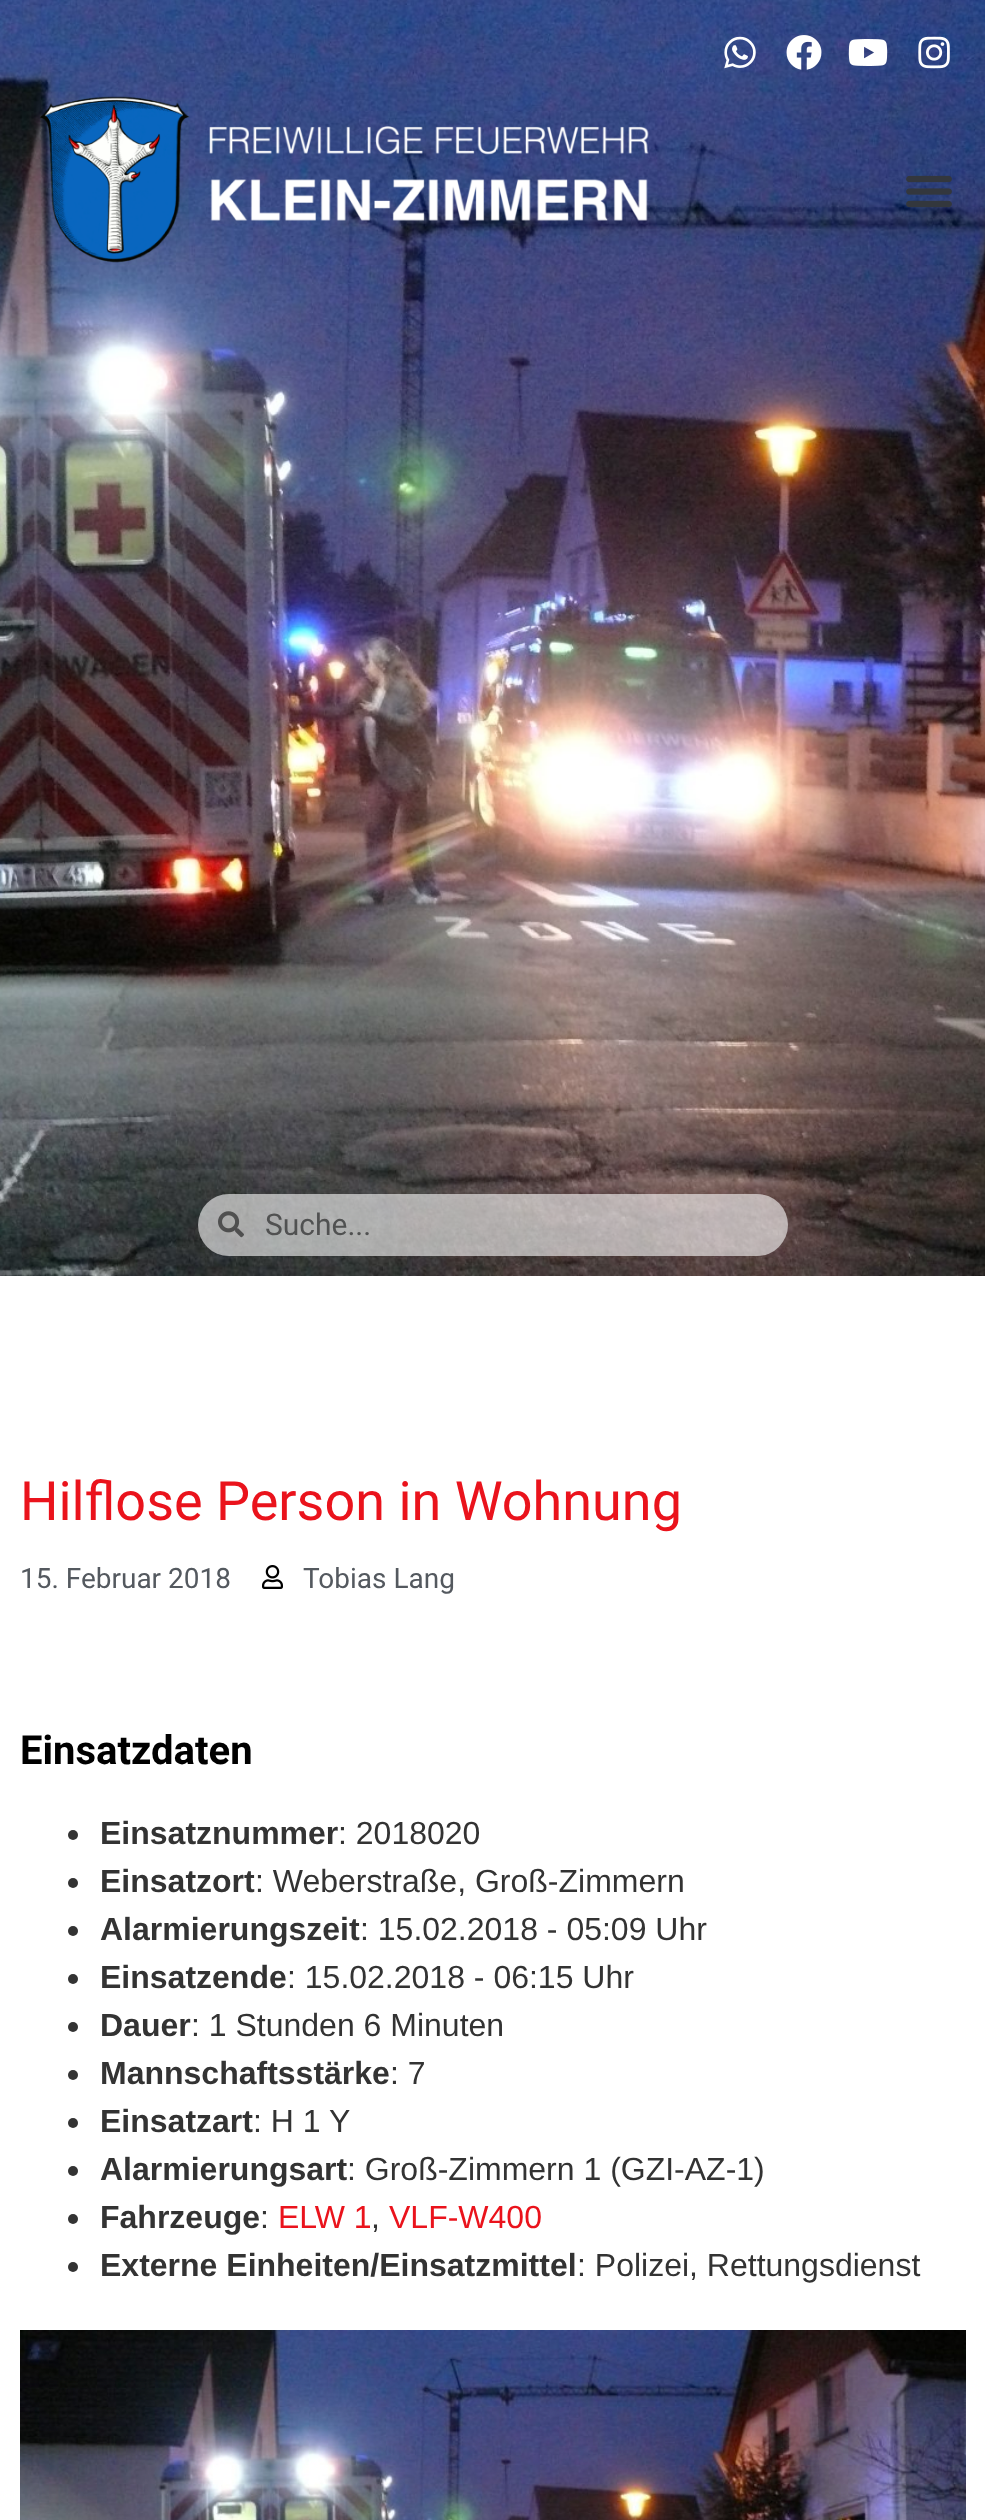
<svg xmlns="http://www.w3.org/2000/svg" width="985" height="2520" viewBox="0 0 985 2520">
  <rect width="100%" height="100%" fill="rgb(255,255,255)"/>
  <image x="0" y="0" width="985" height="1276" href="pic8.png"/>
  <image x="724" y="36" width="32" height="33" href="pic1.png"/>
  <image x="786" y="35" width="36" height="35" href="pic2.png"/>
  <image x="848" y="39" width="40" height="27" href="pic3.png"/>
  <image x="918" y="36" width="32" height="33" href="pic4.png"/>
  <image x="40" y="96" width="609" height="167" href="pic5.png"/>
  <image x="906" y="175" width="46" height="33" href="pic6.png"/>
  <rect x="198" y="1194" width="590" height="62" rx="31" fill="rgba(255,255,255,0.59)"/>
  <image x="218" y="1211" width="26" height="27" href="pic7.png"/>
  <text x="265" y="1235" font-family="Roboto" font-size="30" fill="rgb(80,81,81)">Suche...</text>
  <text x="20" y="1520" font-family="Roboto" font-size="54" fill="rgb(234,19,28)">Hilflose Person in Wohnung</text>
  <text x="20" y="1588" font-family="Roboto" font-size="28" fill="rgb(84,89,95)">15. Februar 2018</text>
  <image x="262" y="1565" width="21" height="24" href="pic9.png"/>
  <text x="303" y="1588" font-family="Roboto" font-size="28" fill="rgb(84,89,95)">Tobias Lang</text>
  <text x="20" y="1764" font-family="Roboto" font-size="40" font-weight="bold" fill="rgb(0,0,0)">Einsatzdaten</text>
  <circle cx="73" cy="1835" r="5" fill="rgb(51,51,51)"/>
  <text x="100" y="1844" font-family="Liberation Sans" font-size="32" font-weight="bold" fill="rgb(51,51,51)">Einsatznummer</text>
  <text x="338" y="1844" font-family="Liberation Sans" font-size="32" fill="rgb(51,51,51)">: 2018020</text>
  <circle cx="73" cy="1883" r="5" fill="rgb(51,51,51)"/>
  <text x="100" y="1892" font-family="Liberation Sans" font-size="32" font-weight="bold" fill="rgb(51,51,51)">Einsatzort</text>
  <text x="255" y="1892" font-family="Liberation Sans" font-size="32" fill="rgb(51,51,51)">: Weberstraße, Groß-Zimmern</text>
  <circle cx="73" cy="1931" r="5" fill="rgb(51,51,51)"/>
  <text x="100" y="1940" font-family="Liberation Sans" font-size="32" font-weight="bold" fill="rgb(51,51,51)">Alarmierungszeit</text>
  <text x="360" y="1940" font-family="Liberation Sans" font-size="32" fill="rgb(51,51,51)">: 15.02.2018 - 05:09 Uhr</text>
  <circle cx="73" cy="1979" r="5" fill="rgb(51,51,51)"/>
  <text x="100" y="1988" font-family="Liberation Sans" font-size="32" font-weight="bold" fill="rgb(51,51,51)">Einsatzende</text>
  <text x="287" y="1988" font-family="Liberation Sans" font-size="32" fill="rgb(51,51,51)">: 15.02.2018 - 06:15 Uhr</text>
  <circle cx="73" cy="2027" r="5" fill="rgb(51,51,51)"/>
  <text x="100" y="2036" font-family="Liberation Sans" font-size="32" font-weight="bold" fill="rgb(51,51,51)">Dauer</text>
  <text x="191" y="2036" font-family="Liberation Sans" font-size="32" fill="rgb(51,51,51)">: 1 Stunden 6 Minuten</text>
  <circle cx="73" cy="2075" r="5" fill="rgb(51,51,51)"/>
  <text x="100" y="2084" font-family="Liberation Sans" font-size="32" font-weight="bold" fill="rgb(51,51,51)">Mannschaftsstärke</text>
  <text x="390" y="2084" font-family="Liberation Sans" font-size="32" fill="rgb(51,51,51)">: 7</text>
  <circle cx="73" cy="2123" r="5" fill="rgb(51,51,51)"/>
  <text x="100" y="2132" font-family="Liberation Sans" font-size="32" font-weight="bold" fill="rgb(51,51,51)">Einsatzart</text>
  <text x="253" y="2132" font-family="Liberation Sans" font-size="32" fill="rgb(51,51,51)">: H 1 Y</text>
  <circle cx="73" cy="2171" r="5" fill="rgb(51,51,51)"/>
  <text x="100" y="2180" font-family="Liberation Sans" font-size="32" font-weight="bold" fill="rgb(51,51,51)">Alarmierungsart</text>
  <text x="347" y="2180" font-family="Liberation Sans" font-size="32" fill="rgb(51,51,51)">: Groß-Zimmern 1 (GZI-AZ-1)</text>
  <circle cx="73" cy="2219" r="5" fill="rgb(51,51,51)"/>
  <text x="100" y="2228" font-family="Liberation Sans" font-size="32" font-weight="bold" fill="rgb(51,51,51)">Fahrzeuge</text>
  <text x="260" y="2228" font-family="Liberation Sans" font-size="32" fill="rgb(51,51,51)">:</text>
  <g font-family="Liberation Sans" font-size="32" fill="rgb(234,19,28)">
    <text x="278" y="2228">ELW 1</text>
    <text x="389" y="2228">VLF-W400</text>
  </g>
  <text x="371" y="2228" font-family="Liberation Sans" font-size="32" fill="rgb(51,51,51)">,</text>
  <circle cx="73" cy="2267" r="5" fill="rgb(51,51,51)"/>
  <text x="100" y="2276" font-family="Liberation Sans" font-size="32" font-weight="bold" fill="rgb(51,51,51)">Externe Einheiten/Einsatzmittel</text>
  <text x="577" y="2276" font-family="Liberation Sans" font-size="32" fill="rgb(51,51,51)">: Polizei, Rettungsdienst</text>
  <image x="20" y="2330" width="946" height="190" href="pic10.png"/>
</svg>
